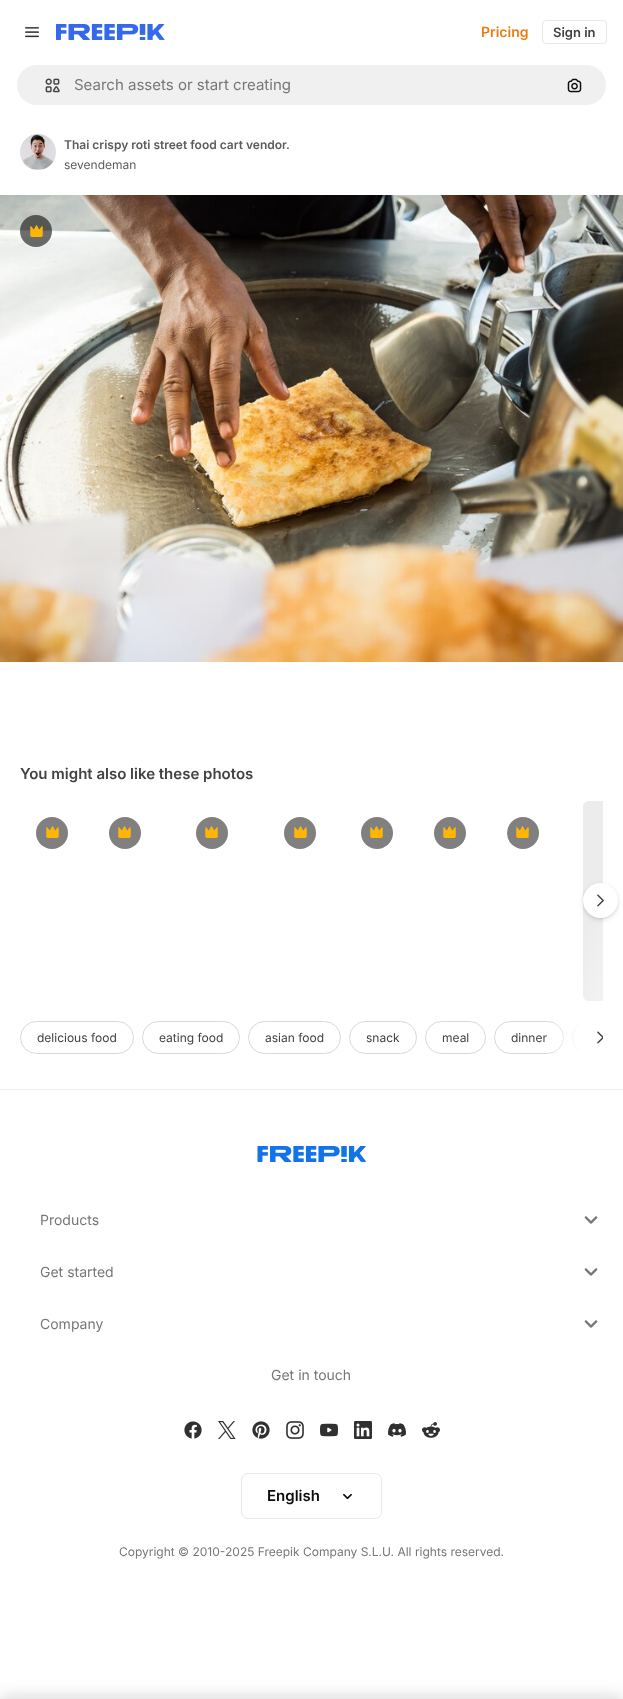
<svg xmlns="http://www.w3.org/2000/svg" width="623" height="1699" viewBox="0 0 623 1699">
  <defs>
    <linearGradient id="g1" gradientUnits="userSpaceOnUse" x1="582" y1="803" x2="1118" y2="999"><stop offset="0.08" stop-color="rgb(236,236,236)"/><stop offset="0.18" stop-color="rgb(245,245,245)"/><stop offset="0.33" stop-color="rgb(236,236,236)"/></linearGradient>
    <clipPath id="clip1"><rect x="20" y="1021" width="583" height="33"/></clipPath>
    <linearGradient id="g2" gradientUnits="userSpaceOnUse" x1="583" y1="1038" x2="548" y2="1038"><stop offset="0" stop-color="rgb(255,255,255)"/><stop offset="1" stop-color="rgb(255,255,255)" stop-opacity="0"/></linearGradient>
  </defs>
  <rect width="100%" height="100%" fill="rgb(255,255,255)"/>
  <image x="25" y="27" width="14" height="11" href="pic1.png"/>
  <image x="56" y="24" width="109" height="16" href="pic2.png"/>
  <text x="481" y="37" font-family="Inter" font-size="14" font-weight="600" fill="rgb(234,126,17)">Pricing</text>
  <rect x="542.5" y="20.5" width="64" height="23" rx="3.5" fill="none" stroke="rgb(231,231,231)"/>
  <text x="553" y="37" font-family="Inter" font-size="13" font-weight="600" fill="rgb(66,66,66)">Sign in</text>
  <rect x="16.5" y="64.5" width="590" height="41" rx="20.5" fill="rgb(240,240,240)" stroke="rgb(255,255,255)"/>
  <image x="45" y="78" width="15" height="15" href="pic3.png"/>
  <text x="74" y="90" font-family="Inter" font-size="15" fill="rgb(119,119,119)">Search assets or start creating</text>
  <image x="567" y="78" width="15" height="15" href="pic4.png"/>
  <image x="20" y="134" width="36" height="36" href="pic5.png"/>
  <text x="64" y="149" font-family="Inter" font-size="12" font-weight="600" fill="rgb(92,92,92)">Thai crispy roti street food cart vendor.</text>
  <text x="64" y="169" font-family="Inter" font-size="12" fill="rgb(92,92,92)">sevendeman</text>
  <image x="0" y="195" width="623" height="467" href="pic6.png"/>
  <circle cx="36" cy="231" r="16" fill="rgba(13,13,13,0.6)"/>
  <image x="30" y="225" width="13" height="12" href="pic7.png"/>
  <text x="20" y="779" font-family="Inter" font-size="15" font-weight="600" fill="rgb(66,66,66)">You might also like these photos</text>
  <circle cx="52" cy="833" r="16" fill="rgb(128,128,128)"/>
  <image x="46" y="826" width="13" height="12" href="pic8.png"/>
  <circle cx="125" cy="833" r="16" fill="rgb(128,128,128)"/>
  <image x="118" y="826" width="13" height="12" href="pic8.png"/>
  <circle cx="212" cy="833" r="16" fill="rgb(128,128,128)"/>
  <image x="205" y="826" width="13" height="12" href="pic8.png"/>
  <circle cx="300" cy="833" r="16" fill="rgb(128,128,128)"/>
  <image x="294" y="826" width="13" height="12" href="pic8.png"/>
  <circle cx="377" cy="833" r="16" fill="rgb(128,128,128)"/>
  <image x="370" y="826" width="13" height="12" href="pic8.png"/>
  <circle cx="450" cy="833" r="16" fill="rgb(128,128,128)"/>
  <image x="443" y="826" width="13" height="12" href="pic8.png"/>
  <circle cx="523" cy="833" r="16" fill="rgb(128,128,128)"/>
  <image x="516" y="826" width="13" height="12" href="pic8.png"/>
  <path d="M589 801H603V1001H589C585.5 1001 583 998.5 583 995V807C583 803.5 585.5 801 589 801Z" fill="url(#g1)"/>
  <rect x="583" y="885" width="35" height="35" rx="17.5" fill="rgba(55,73,87,0.15)" filter="blur(2.5px)"/>
  <rect x="583" y="884" width="35" height="35" rx="17.5" fill="rgba(55,73,87,0.1)" filter="blur(1px)"/>
  <circle cx="600.5" cy="900.5" r="17.5" fill="rgb(255,255,255)"/>
  <image x="597" y="894" width="7" height="13" href="pic9.png"/>
  <rect x="20.5" y="1021.5" width="113" height="32" rx="16" fill="none" stroke="rgb(216,216,216)"/>
  <text x="37" y="1042" font-family="Inter" font-size="12" fill="rgb(66,66,66)">delicious food</text>
  <rect x="142.5" y="1021.5" width="97" height="32" rx="16" fill="none" stroke="rgb(216,216,216)"/>
  <text x="159" y="1042" font-family="Inter" font-size="12" fill="rgb(66,66,66)">eating food</text>
  <rect x="248.5" y="1021.5" width="92" height="32" rx="16" fill="none" stroke="rgb(216,216,216)"/>
  <text x="265" y="1042" font-family="Inter" font-size="12" fill="rgb(66,66,66)">asian food</text>
  <rect x="349.5" y="1021.5" width="67" height="32" rx="16" fill="none" stroke="rgb(216,216,216)"/>
  <text x="366" y="1042" font-family="Inter" font-size="12" fill="rgb(66,66,66)">snack</text>
  <rect x="425.5" y="1021.5" width="60" height="32" rx="16" fill="none" stroke="rgb(216,216,216)"/>
  <text x="442" y="1042" font-family="Inter" font-size="12" fill="rgb(66,66,66)">meal</text>
  <rect x="494.5" y="1021.5" width="69" height="32" rx="16" fill="none" stroke="rgb(216,216,216)"/>
  <text x="511" y="1042" font-family="Inter" font-size="12" fill="rgb(66,66,66)">dinner</text>
  <g clip-path="url(#clip1)">
    <rect x="572.5" y="1021.5" width="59" height="32" rx="16" fill="none" stroke="rgb(216,216,216)"/>
  </g>
  <rect x="583" y="1021" width="20" height="33" fill="rgb(255,255,255)"/>
  <rect x="552" y="1022" width="31" height="31" fill="url(#g2)"/>
  <image x="597" y="1031" width="6" height="13" href="pic10.png"/>
  <rect x="0" y="1089" width="623" height="1" fill="rgb(240,240,240)"/>
  <image x="257" y="1146" width="109" height="16" href="pic11.png"/>
  <text x="40" y="1225" font-family="Inter" font-size="14" fill="rgb(119,119,119)">Products</text>
  <image x="584" y="1216" width="14" height="8" href="pic12.png"/>
  <text x="40" y="1277" font-family="Inter" font-size="14" fill="rgb(119,119,119)">Get started</text>
  <image x="584" y="1268" width="14" height="8" href="pic12.png"/>
  <text x="40" y="1329" font-family="Inter" font-size="14" fill="rgb(119,119,119)">Company</text>
  <image x="584" y="1320" width="14" height="8" href="pic12.png"/>
  <text x="271" y="1380" font-family="Inter" font-size="14" fill="rgb(119,119,119)">Get in touch</text>
  <image x="184" y="1421" width="18" height="18" href="pic13.png"/>
  <image x="218" y="1421" width="18" height="18" href="pic14.png"/>
  <image x="252" y="1421" width="18" height="18" href="pic15.png"/>
  <image x="286" y="1421" width="18" height="18" href="pic16.png"/>
  <image x="320" y="1423" width="18" height="14" href="pic17.png"/>
  <image x="354" y="1421" width="18" height="18" href="pic18.png"/>
  <image x="388" y="1423" width="18" height="14" href="pic19.png"/>
  <image x="422" y="1422" width="18" height="16" href="pic20.png"/>
  <rect x="241.5" y="1473.5" width="140" height="45" rx="6.5" fill="none" stroke="rgb(230,230,230)"/>
  <text x="267" y="1501" font-family="Inter" font-size="15" font-weight="600" fill="rgb(13,13,13)">English</text>
  <image x="343" y="1493" width="9" height="7" href="pic21.png"/>
  <g font-family="Inter" font-size="12" fill="rgb(119,119,119)">
    <text x="119" y="1556">Copyright © 2010-</text>
    <text x="225" y="1556">2025 Freepik Company S.L.U. All rights reserved.</text>
  </g>
  <rect x="0" y="1699" width="623" height="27" fill="rgba(0,0,0,0.2)" filter="blur(9px)"/>
</svg>
